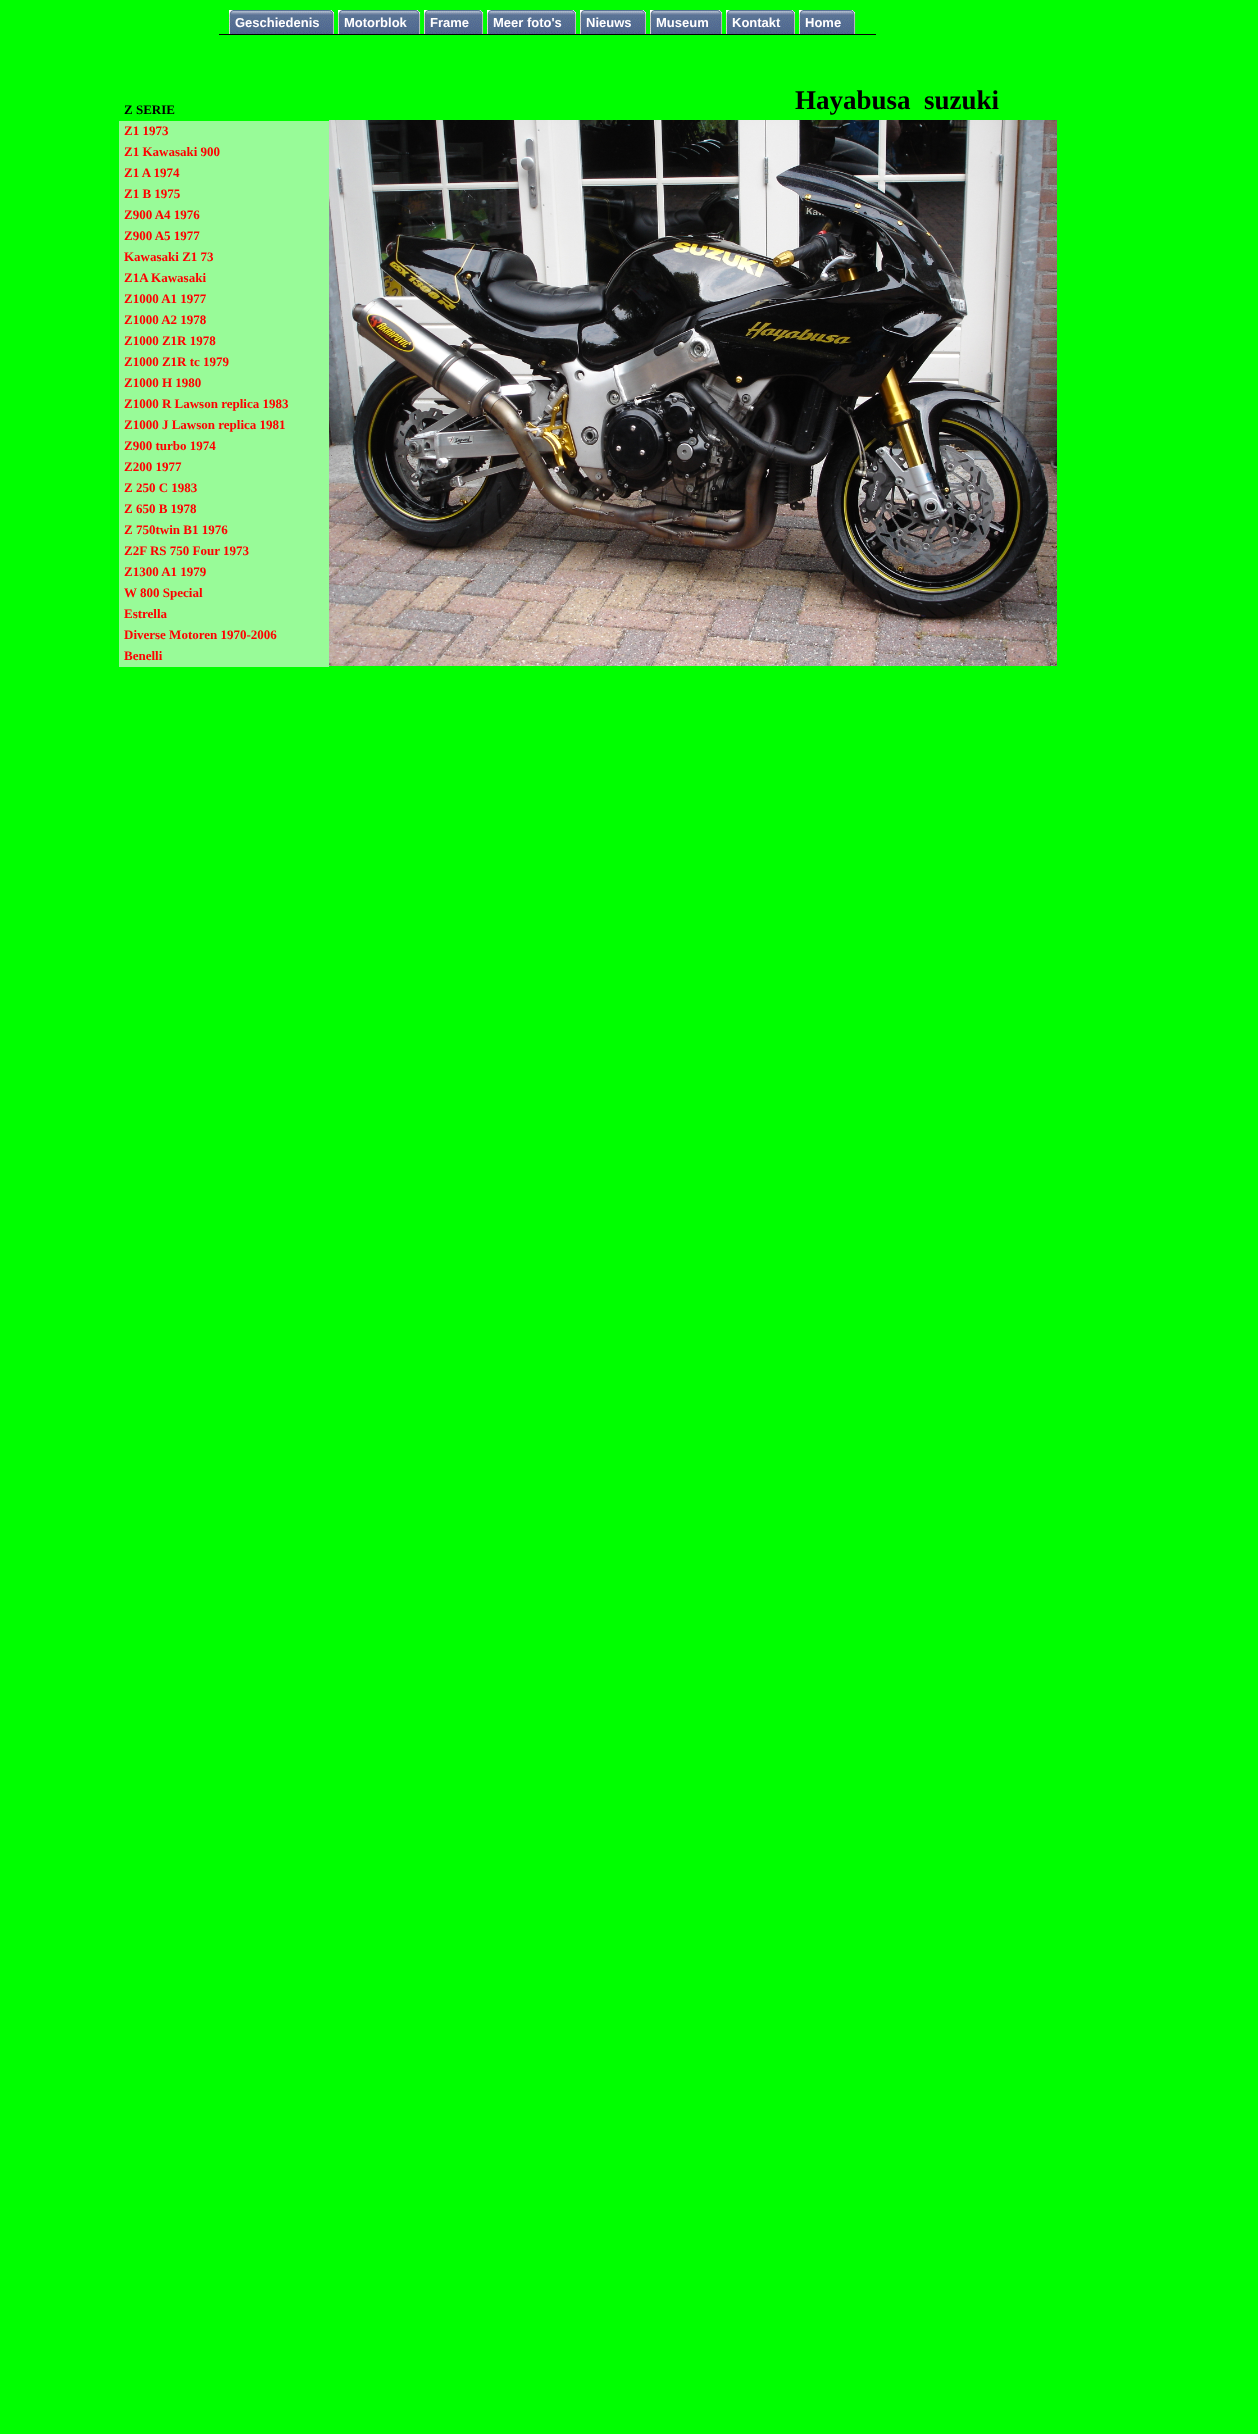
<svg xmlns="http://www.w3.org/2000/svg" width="1258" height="2434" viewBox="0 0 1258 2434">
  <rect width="100%" height="100%" fill="rgb(0,255,0)"/>
  <rect x="219" y="34" width="657" height="1" fill="rgb(0,0,0)"/>
  <image x="229" y="10" width="4" height="24" href="pic1.png"/>
  <image x="233" y="10" width="101" height="24" href="pic2.png"/>
  <text x="235" y="27" font-family="Liberation Sans" font-size="13" font-weight="bold" fill="rgb(255,255,255)">Geschiedenis</text>
  <image x="338" y="10" width="4" height="24" href="pic1.png"/>
  <image x="342" y="10" width="79" height="24" href="pic3.png"/>
  <text x="344" y="27" font-family="Liberation Sans" font-size="13" font-weight="bold" fill="rgb(255,255,255)">Motorblok</text>
  <image x="424" y="10" width="4" height="24" href="pic1.png"/>
  <image x="428" y="10" width="56" height="24" href="pic4.png"/>
  <text x="430" y="27" font-family="Liberation Sans" font-size="13" font-weight="bold" fill="rgb(255,255,255)">Frame</text>
  <image x="487" y="10" width="4" height="24" href="pic1.png"/>
  <image x="491" y="10" width="85" height="24" href="pic5.png"/>
  <text x="493" y="27" font-family="Liberation Sans" font-size="13" font-weight="bold" fill="rgb(255,255,255)">Meer foto's</text>
  <image x="580" y="10" width="4" height="24" href="pic1.png"/>
  <image x="584" y="10" width="62" height="24" href="pic6.png"/>
  <text x="586" y="27" font-family="Liberation Sans" font-size="13" font-weight="bold" fill="rgb(255,255,255)">Nieuws</text>
  <image x="650" y="10" width="4" height="24" href="pic1.png"/>
  <image x="654" y="10" width="69" height="24" href="pic7.png"/>
  <text x="656" y="27" font-family="Liberation Sans" font-size="13" font-weight="bold" fill="rgb(255,255,255)">Museum</text>
  <image x="726" y="10" width="4" height="24" href="pic1.png"/>
  <image x="730" y="10" width="65" height="24" href="pic8.png"/>
  <text x="732" y="27" font-family="Liberation Sans" font-size="13" font-weight="bold" fill="rgb(255,255,255)">Kontakt</text>
  <image x="799" y="10" width="4" height="24" href="pic1.png"/>
  <image x="803" y="10" width="53" height="24" href="pic9.png"/>
  <text x="805" y="27" font-family="Liberation Sans" font-size="13" font-weight="bold" fill="rgb(255,255,255)">Home</text>
  <text x="795" y="109" font-family="Liberation Serif" font-size="27" font-weight="bold" fill="rgb(0,0,0)" xml:space="preserve">Hayabusa  suzuki</text>
  <text x="124" y="114" font-family="Liberation Serif" font-size="13" font-weight="bold" fill="rgb(0,0,0)">Z SERIE</text>
  <rect x="119" y="121" width="210" height="21" fill="rgb(152,251,152)"/>
  <text x="124" y="135" font-family="Liberation Serif" font-size="13" font-weight="bold" fill="rgb(255,0,0)">Z1 1973</text>
  <rect x="119" y="142" width="210" height="21" fill="rgb(152,251,152)"/>
  <text x="124" y="156" font-family="Liberation Serif" font-size="13" font-weight="bold" fill="rgb(255,0,0)">Z1 Kawasaki 900</text>
  <rect x="119" y="163" width="210" height="21" fill="rgb(152,251,152)"/>
  <text x="124" y="177" font-family="Liberation Serif" font-size="13" font-weight="bold" fill="rgb(255,0,0)">Z1 A 1974</text>
  <rect x="119" y="184" width="210" height="21" fill="rgb(152,251,152)"/>
  <text x="124" y="198" font-family="Liberation Serif" font-size="13" font-weight="bold" fill="rgb(255,0,0)">Z1 B 1975</text>
  <rect x="119" y="205" width="210" height="21" fill="rgb(152,251,152)"/>
  <text x="124" y="219" font-family="Liberation Serif" font-size="13" font-weight="bold" fill="rgb(255,0,0)">Z900 A4 1976</text>
  <rect x="119" y="226" width="210" height="21" fill="rgb(152,251,152)"/>
  <text x="124" y="240" font-family="Liberation Serif" font-size="13" font-weight="bold" fill="rgb(255,0,0)">Z900 A5 1977</text>
  <rect x="119" y="247" width="210" height="21" fill="rgb(152,251,152)"/>
  <text x="124" y="261" font-family="Liberation Serif" font-size="13" font-weight="bold" fill="rgb(255,0,0)">Kawasaki Z1 73</text>
  <rect x="119" y="268" width="210" height="21" fill="rgb(152,251,152)"/>
  <text x="124" y="282" font-family="Liberation Serif" font-size="13" font-weight="bold" fill="rgb(255,0,0)">Z1A Kawasaki</text>
  <rect x="119" y="289" width="210" height="21" fill="rgb(152,251,152)"/>
  <text x="124" y="303" font-family="Liberation Serif" font-size="13" font-weight="bold" fill="rgb(255,0,0)">Z1000 A1 1977</text>
  <rect x="119" y="310" width="210" height="21" fill="rgb(152,251,152)"/>
  <text x="124" y="324" font-family="Liberation Serif" font-size="13" font-weight="bold" fill="rgb(255,0,0)">Z1000 A2 1978</text>
  <rect x="119" y="331" width="210" height="21" fill="rgb(152,251,152)"/>
  <text x="124" y="345" font-family="Liberation Serif" font-size="13" font-weight="bold" fill="rgb(255,0,0)">Z1000 Z1R 1978</text>
  <rect x="119" y="352" width="210" height="21" fill="rgb(152,251,152)"/>
  <text x="124" y="366" font-family="Liberation Serif" font-size="13" font-weight="bold" fill="rgb(255,0,0)">Z1000 Z1R tc 1979</text>
  <rect x="119" y="373" width="210" height="21" fill="rgb(152,251,152)"/>
  <text x="124" y="387" font-family="Liberation Serif" font-size="13" font-weight="bold" fill="rgb(255,0,0)">Z1000 H 1980</text>
  <rect x="119" y="394" width="210" height="21" fill="rgb(152,251,152)"/>
  <text x="124" y="408" font-family="Liberation Serif" font-size="13" font-weight="bold" fill="rgb(255,0,0)">Z1000 R Lawson replica 1983</text>
  <rect x="119" y="415" width="210" height="21" fill="rgb(152,251,152)"/>
  <text x="124" y="429" font-family="Liberation Serif" font-size="13" font-weight="bold" fill="rgb(255,0,0)">Z1000 J Lawson replica 1981</text>
  <rect x="119" y="436" width="210" height="21" fill="rgb(152,251,152)"/>
  <text x="124" y="450" font-family="Liberation Serif" font-size="13" font-weight="bold" fill="rgb(255,0,0)">Z900 turbo 1974</text>
  <rect x="119" y="457" width="210" height="21" fill="rgb(152,251,152)"/>
  <text x="124" y="471" font-family="Liberation Serif" font-size="13" font-weight="bold" fill="rgb(255,0,0)">Z200 1977</text>
  <rect x="119" y="478" width="210" height="21" fill="rgb(152,251,152)"/>
  <text x="124" y="492" font-family="Liberation Serif" font-size="13" font-weight="bold" fill="rgb(255,0,0)">Z 250 C 1983</text>
  <rect x="119" y="499" width="210" height="21" fill="rgb(152,251,152)"/>
  <text x="124" y="513" font-family="Liberation Serif" font-size="13" font-weight="bold" fill="rgb(255,0,0)">Z 650 B 1978</text>
  <rect x="119" y="520" width="210" height="21" fill="rgb(152,251,152)"/>
  <text x="124" y="534" font-family="Liberation Serif" font-size="13" font-weight="bold" fill="rgb(255,0,0)">Z 750twin B1 1976</text>
  <rect x="119" y="541" width="210" height="21" fill="rgb(152,251,152)"/>
  <text x="124" y="555" font-family="Liberation Serif" font-size="13" font-weight="bold" fill="rgb(255,0,0)">Z2F RS 750 Four 1973</text>
  <rect x="119" y="562" width="210" height="21" fill="rgb(152,251,152)"/>
  <text x="124" y="576" font-family="Liberation Serif" font-size="13" font-weight="bold" fill="rgb(255,0,0)">Z1300 A1 1979</text>
  <rect x="119" y="583" width="210" height="21" fill="rgb(152,251,152)"/>
  <text x="124" y="597" font-family="Liberation Serif" font-size="13" font-weight="bold" fill="rgb(255,0,0)">W 800 Special</text>
  <rect x="119" y="604" width="210" height="21" fill="rgb(152,251,152)"/>
  <text x="124" y="618" font-family="Liberation Serif" font-size="13" font-weight="bold" fill="rgb(255,0,0)">Estrella</text>
  <rect x="119" y="625" width="210" height="21" fill="rgb(152,251,152)"/>
  <text x="124" y="639" font-family="Liberation Serif" font-size="13" font-weight="bold" fill="rgb(255,0,0)">Diverse Motoren 1970-2006</text>
  <rect x="119" y="646" width="210" height="21" fill="rgb(152,251,152)"/>
  <text x="124" y="660" font-family="Liberation Serif" font-size="13" font-weight="bold" fill="rgb(255,0,0)">Benelli</text>
  <image x="329" y="120" width="728" height="546" href="pic10.png"/>
</svg>
